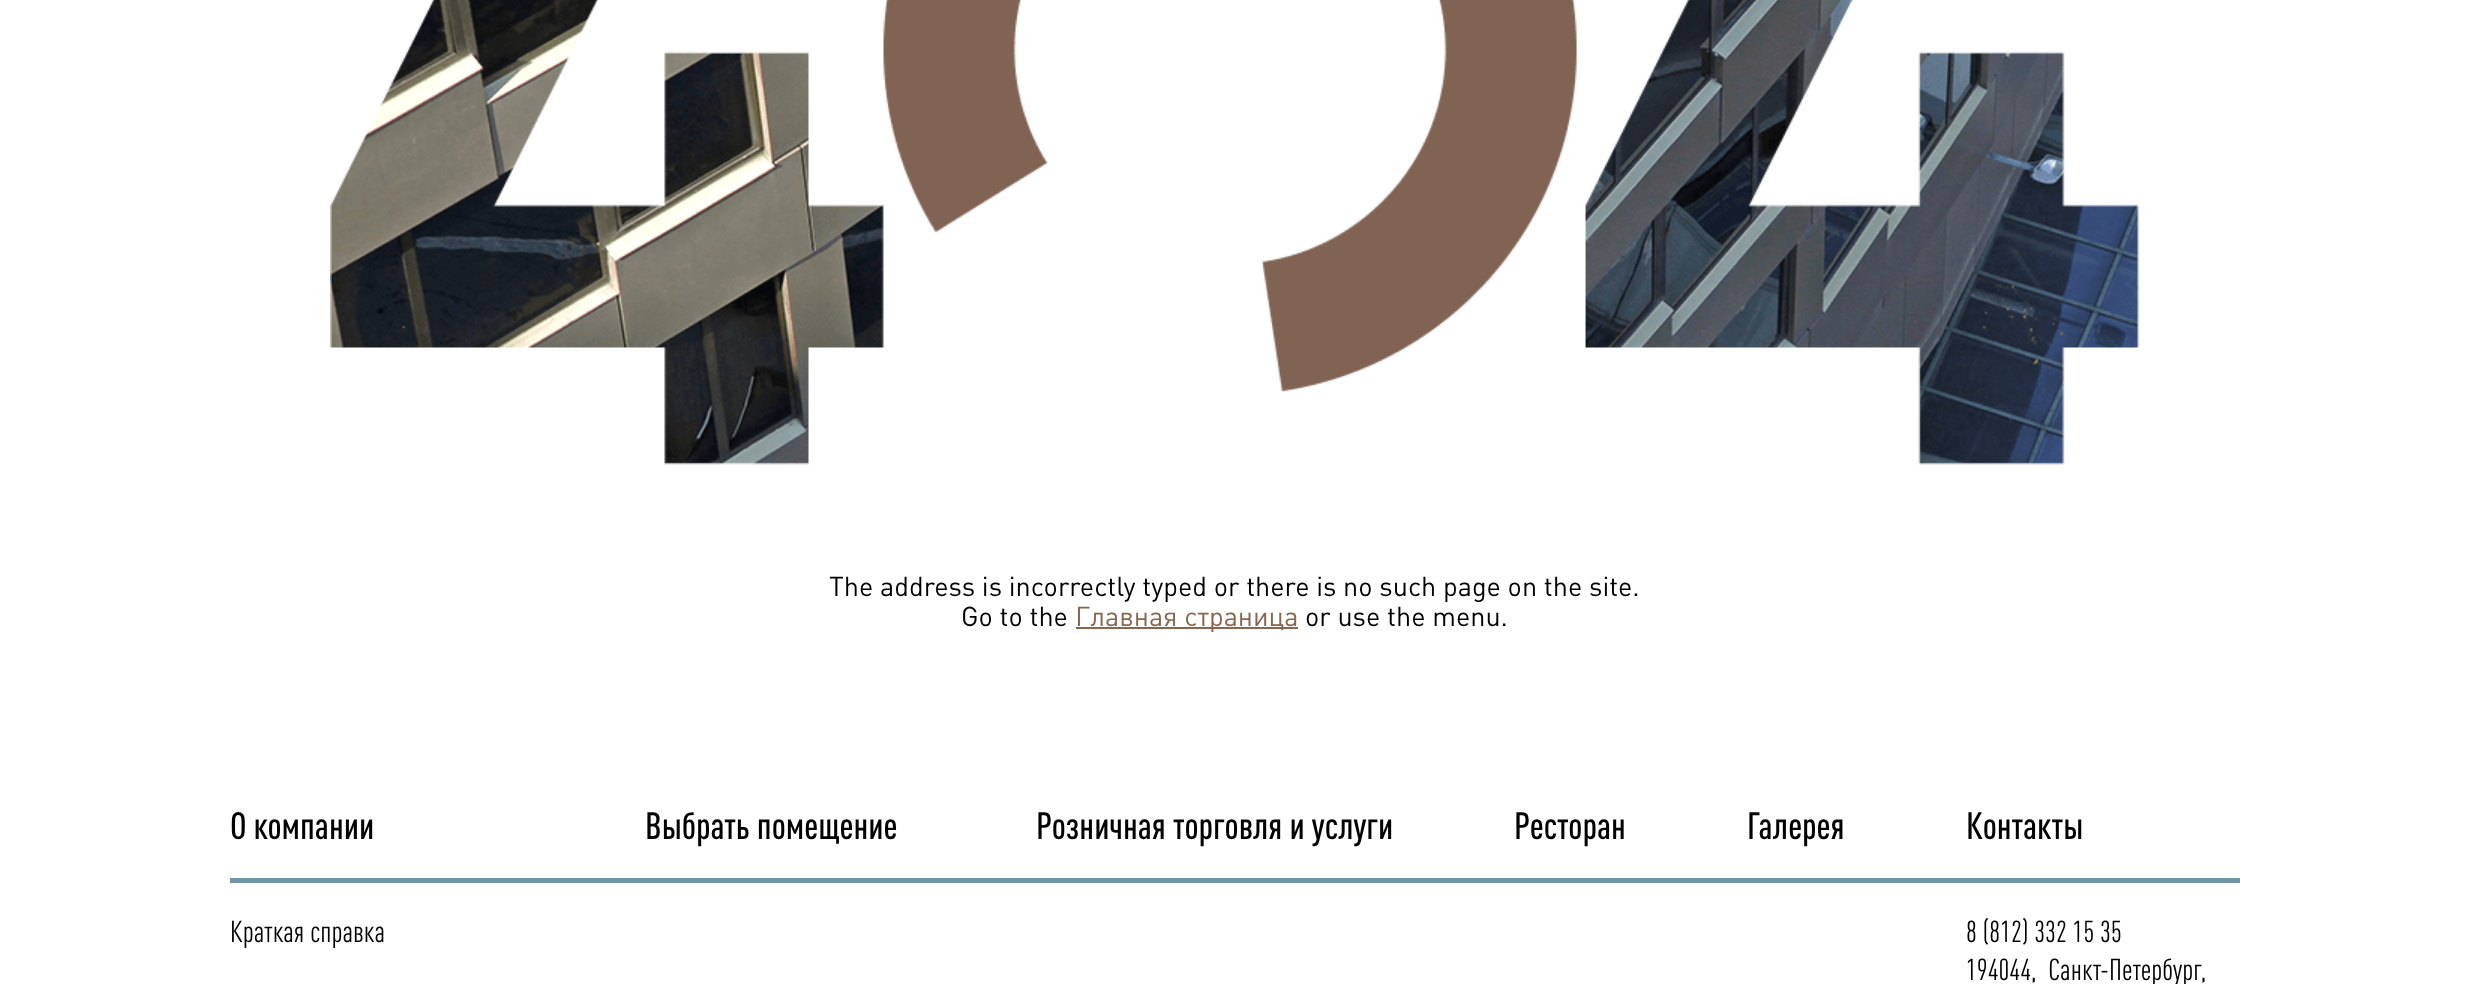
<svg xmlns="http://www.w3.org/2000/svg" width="2468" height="984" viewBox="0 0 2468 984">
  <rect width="100%" height="100%" fill="rgb(255,255,255)"/>
  <image x="330" y="0" width="1809" height="465" href="pic1.png"/>
  <g font-family="DIN" font-size="27" fill="rgb(0,0,0)">
    <text x="829" y="596">The address is incorrectly typed or there is no such page on the site.</text>
    <text x="961" y="626">Go to the</text>
  </g>
  <rect x="1076" y="627" width="222" height="2" fill="rgb(135,101,78)"/>
  <text x="1075" y="626" font-family="DIN" font-size="27" fill="rgb(135,101,78)">Главная страница</text>
  <text x="1305" y="626" font-family="DIN" font-size="27" fill="rgb(0,0,0)">or use the menu.</text>
  <text x="230" y="839" font-family="DIN" font-size="37.5" font-weight="500" fill="rgb(0,0,0)">О компании</text>
  <text x="230" y="942" font-family="'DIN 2'" font-size="30" fill="rgb(0,0,0)">Краткая справка</text>
  <g font-family="DIN" font-size="37.5" font-weight="500" fill="rgb(0,0,0)">
    <text x="645" y="839">Выбрать помещение</text>
    <text x="1036" y="839">Розничная торговля и услуги</text>
    <text x="1514" y="839">Ресторан</text>
    <text x="1747" y="839">Галерея</text>
    <text x="1966" y="839">Контакты</text>
  </g>
  <g font-family="'DIN 2'" font-size="30" fill="rgb(0,0,0)">
    <text xml:space="preserve"><tspan x="1966" y="942">8 (812) 332 15 35</tspan><tspan x="1966" y="980">194044,  Санкт-Петербург,</tspan></text>
  </g>
  <rect x="230" y="878" width="2010" height="5" fill="rgb(112,149,168)"/>
</svg>
